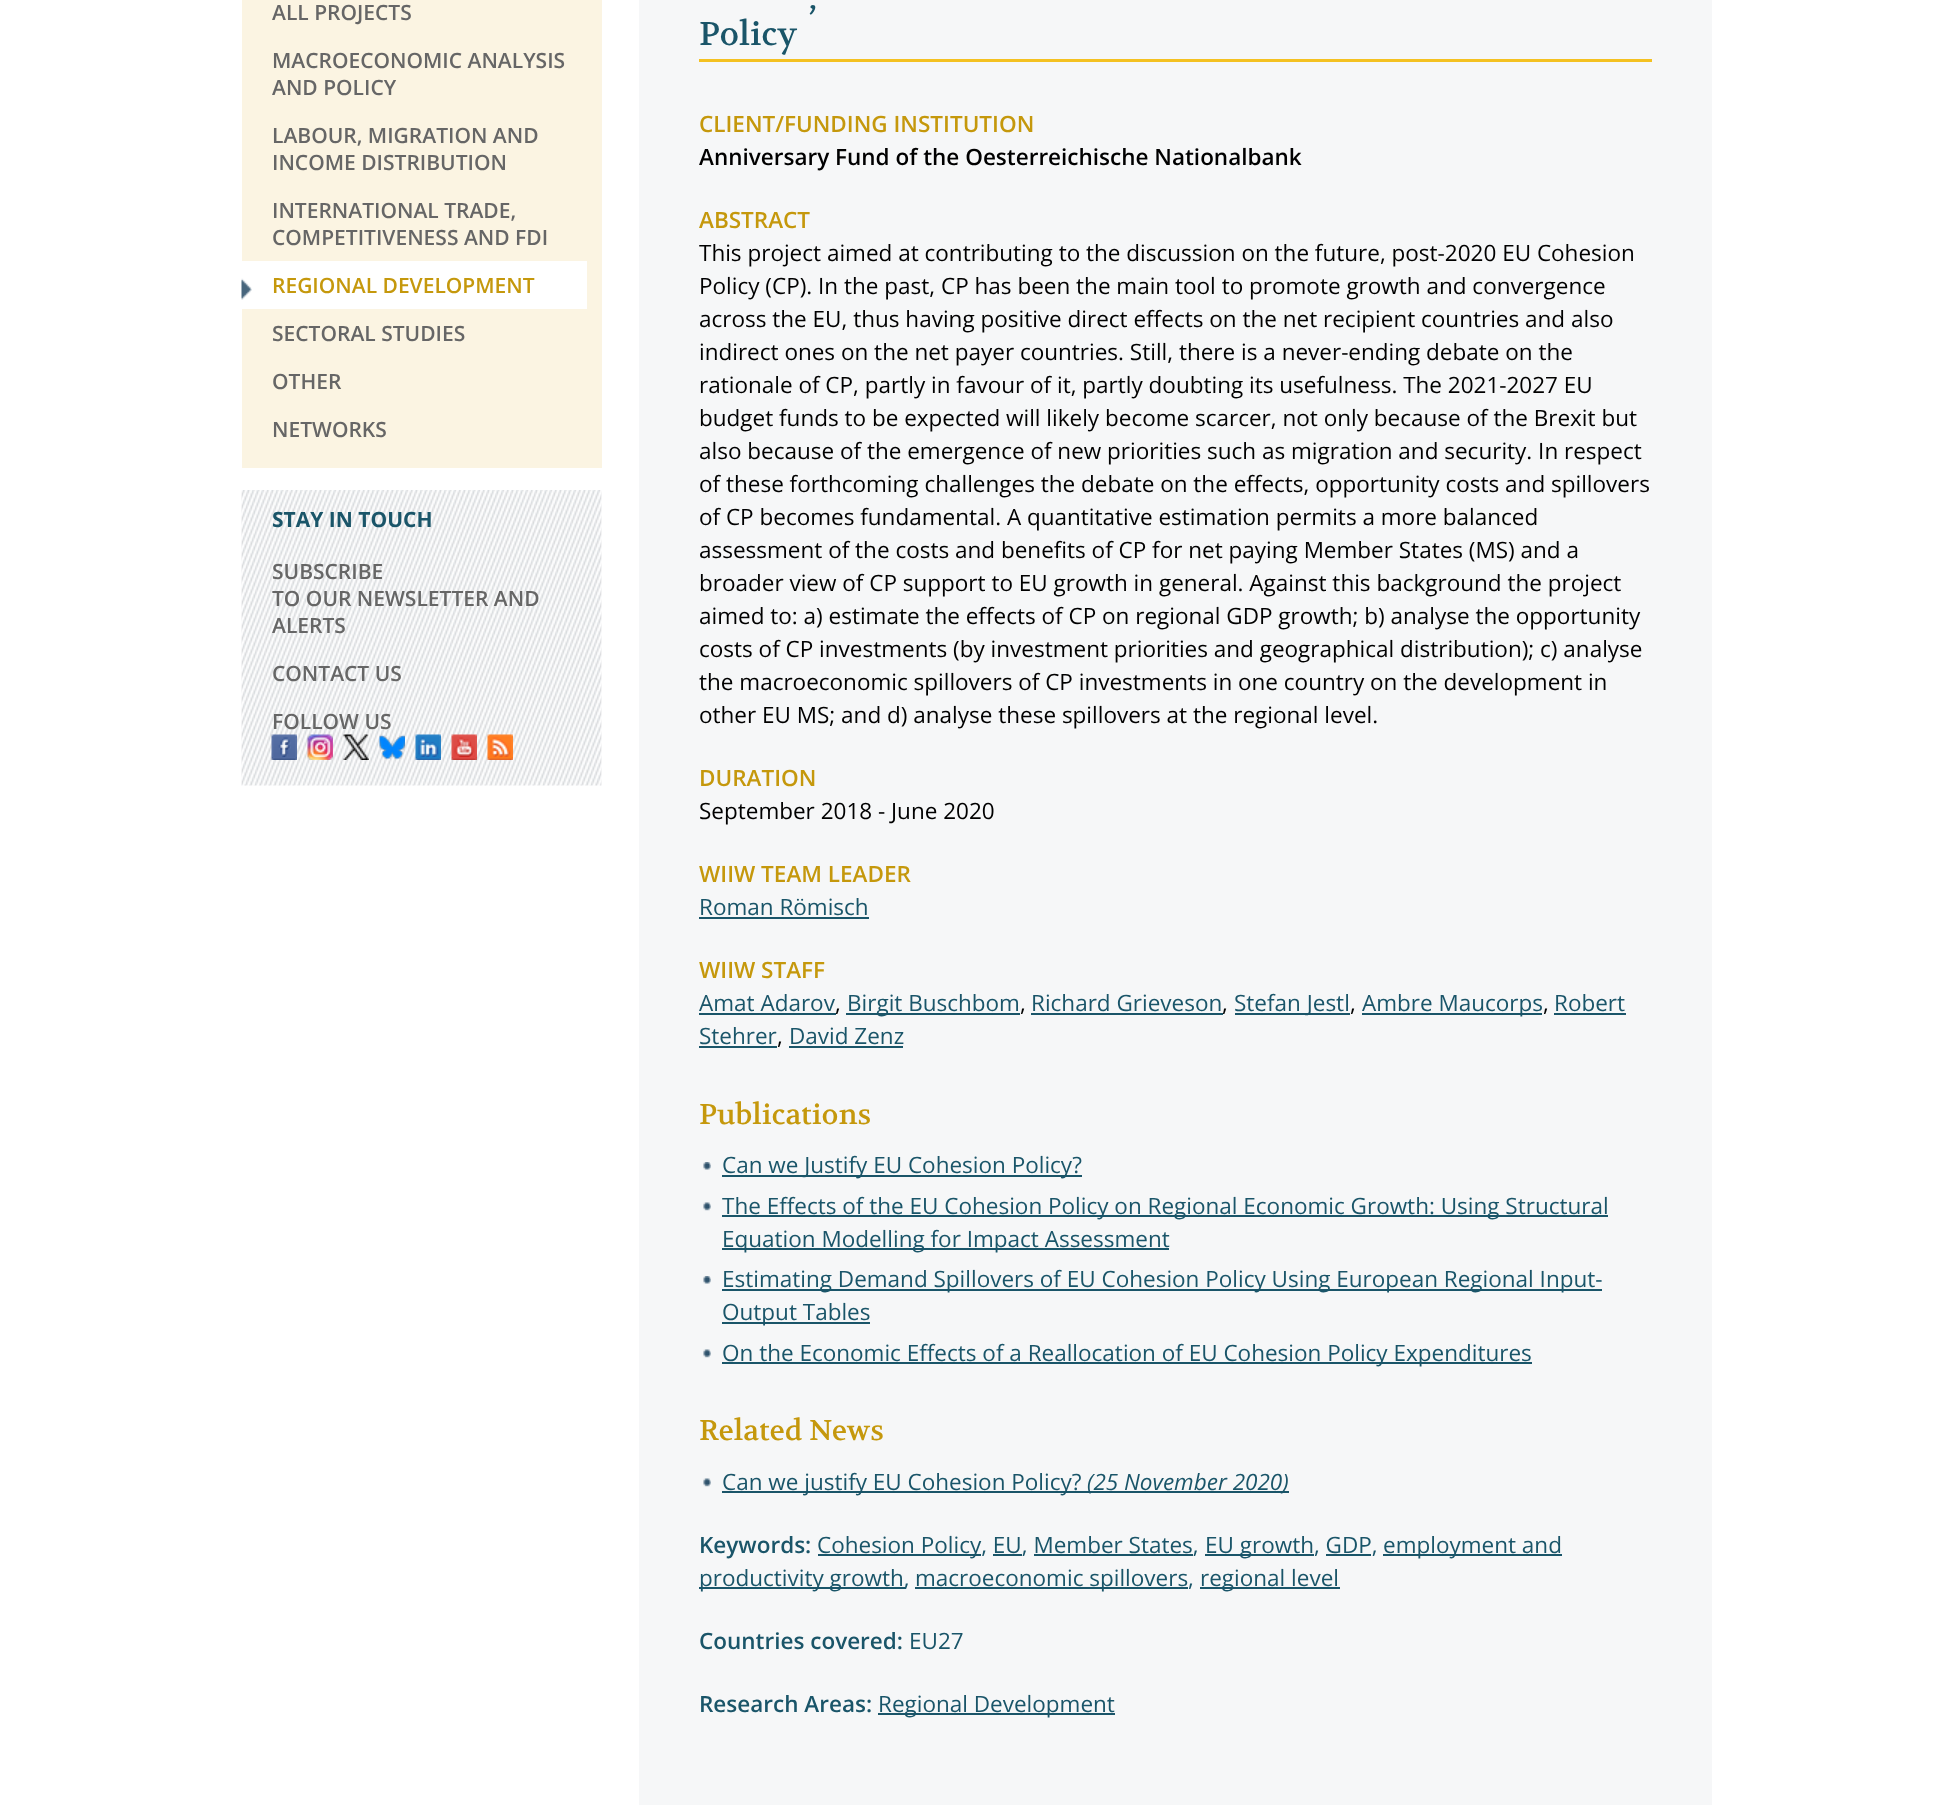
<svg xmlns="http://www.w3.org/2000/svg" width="1952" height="1805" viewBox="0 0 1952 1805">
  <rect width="100%" height="100%" fill="rgb(255,255,255)"/>
  <rect x="242" y="0" width="360" height="468" fill="rgb(251,244,226)"/>
  <g font-family="Open Sans" font-size="21" font-weight="600" fill="rgb(102,102,102)">
    <text x="272" y="20">ALL PROJECTS</text>
    <text>
      <tspan x="272" y="68">MACROECONOMIC ANALYSIS</tspan>
      <tspan x="272" y="95">AND POLICY</tspan>
    </text>
    <text>
      <tspan x="272" y="143">LABOUR, MIGRATION AND</tspan>
      <tspan x="272" y="170">INCOME DISTRIBUTION</tspan>
    </text>
    <text>
      <tspan x="272" y="218">INTERNATIONAL TRADE,</tspan>
      <tspan x="272" y="245">COMPETITIVENESS AND FDI</tspan>
    </text>
  </g>
  <rect x="242" y="261" width="345" height="48" fill="rgb(255,255,255)"/>
  <image x="241" y="278" width="11" height="22" href="pic1.png"/>
  <text x="272" y="293" font-family="Open Sans" font-size="21" font-weight="600" fill="rgb(197,152,12)">REGIONAL DEVELOPMENT</text>
  <g font-family="Open Sans" font-size="21" font-weight="600" fill="rgb(102,102,102)">
    <text x="272" y="341">SECTORAL STUDIES</text>
    <text x="272" y="389">OTHER</text>
    <text x="272" y="437">NETWORKS</text>
  </g>
  <image x="241" y="490" width="361" height="296" href="pic2.png"/>
  <text x="272" y="527" font-family="Open Sans" font-size="21" font-weight="bold" fill="rgb(26,85,105)">STAY IN TOUCH</text>
  <g font-family="Open Sans" font-size="21" font-weight="600" fill="rgb(102,102,102)">
    <text>
      <tspan x="272" y="579">SUBSCRIBE</tspan>
      <tspan x="272" y="606">TO OUR NEWSLETTER AND</tspan>
      <tspan x="272" y="633">ALERTS</tspan>
    </text>
    <text x="272" y="681">CONTACT US</text>
    <text x="272" y="729">FOLLOW US</text>
  </g>
  <image x="271" y="734" width="26" height="26" href="pic3.png"/>
  <image x="307" y="734" width="26" height="26" href="pic4.png"/>
  <image x="343" y="734" width="26" height="26" href="pic5.png"/>
  <image x="379" y="734" width="26" height="26" href="pic6.png"/>
  <image x="415" y="734" width="26" height="26" href="pic7.png"/>
  <image x="451" y="734" width="26" height="26" href="pic8.png"/>
  <image x="487" y="734" width="26" height="26" href="pic9.png"/>
  <rect x="639" y="0" width="1073" height="1805" fill="rgb(246,247,248)"/>
  <rect x="699" y="59" width="953" height="3" fill="rgb(244,193,33)"/>
  <g font-family="Volkhov" font-size="33" fill="rgb(26,85,105)">
    <text x="809" y="9">,</text>
    <text x="699" y="45">Policy</text>
  </g>
  <text x="699" y="132" font-family="Open Sans" font-size="22.5" font-weight="600" fill="rgb(197,152,12)">CLIENT/FUNDING INSTITUTION</text>
  <text x="699" y="165" font-family="Open Sans" font-size="22.5" font-weight="600" fill="rgb(0,0,0)">Anniversary Fund of the Oesterreichische Nationalbank</text>
  <text x="699" y="228" font-family="Open Sans" font-size="22.5" font-weight="600" fill="rgb(197,152,12)">ABSTRACT</text>
  <g font-family="Open Sans" font-size="22.5" fill="rgb(0,0,0)">
    <text>
      <tspan x="699" y="261">This project aimed at contributing to the discussion on the future, post-2020 EU Cohesion</tspan>
      <tspan x="699" y="294">Policy (CP). In the past, CP has been the main tool to promote growth and convergence</tspan>
      <tspan x="699" y="327">across the EU, thus having positive direct effects on the net recipient countries and also</tspan>
      <tspan x="699" y="360">indirect ones on the net payer countries. Still, there is a never-ending debate on the</tspan>
      <tspan x="699" y="393">rationale of CP, partly in favour of it, partly doubting its usefulness. The 2021-2027 EU</tspan>
      <tspan x="699" y="426">budget funds to be expected will likely become scarcer, not only because of the Brexit but</tspan>
      <tspan x="699" y="459">also because of the emergence of new priorities such as migration and security. In respect</tspan>
      <tspan x="699" y="492">of these forthcoming challenges the debate on the effects, opportunity costs and spillovers</tspan>
      <tspan x="699" y="525">of CP becomes fundamental. A quantitative estimation permits a more balanced</tspan>
      <tspan x="699" y="558">assessment of the costs and benefits of CP for net paying Member States (MS) and a</tspan>
      <tspan x="699" y="591">broader view of CP support to EU growth in general. Against this background the project</tspan>
      <tspan x="699" y="624">aimed to: a) estimate the effects of CP on regional GDP growth; b) analyse the opportunity</tspan>
      <tspan x="699" y="657">costs of CP investments (by investment priorities and geographical distribution); c) analyse</tspan>
      <tspan x="699" y="690">the macroeconomic spillovers of CP investments in one country on the development in</tspan>
      <tspan x="699" y="723">other EU MS; and d) analyse these spillovers at the regional level.</tspan>
    </text>
  </g>
  <text x="699" y="786" font-family="Open Sans" font-size="22.5" font-weight="600" fill="rgb(197,152,12)">DURATION</text>
  <text x="699" y="819" font-family="Open Sans" font-size="22.5" fill="rgb(0,0,0)">September 2018 - June 2020</text>
  <text x="699" y="882" font-family="Open Sans" font-size="22.5" font-weight="600" fill="rgb(197,152,12)">WIIW TEAM LEADER</text>
  <text x="699" y="915" font-family="Open Sans" font-size="22.5" fill="rgb(26,85,105)">Roman Römisch</text>
  <rect x="699" y="917" width="170" height="2" fill="rgb(26,85,105)"/>
  <text x="699" y="978" font-family="Open Sans" font-size="22.5" font-weight="600" fill="rgb(197,152,12)">WIIW STAFF</text>
  <text x="699" y="1011" font-family="Open Sans" font-size="22.5" fill="rgb(26,85,105)">Amat Adarov</text>
  <rect x="699" y="1013" width="137" height="2" fill="rgb(26,85,105)"/>
  <text x="835" y="1011" font-family="Open Sans" font-size="22.5" fill="rgb(0,0,0)">,</text>
  <rect x="846" y="1013" width="174" height="2" fill="rgb(26,85,105)"/>
  <text x="847" y="1011" font-family="Open Sans" font-size="22.5" fill="rgb(26,85,105)">Birgit Buschbom</text>
  <text x="1020" y="1011" font-family="Open Sans" font-size="22.5" fill="rgb(0,0,0)">,</text>
  <text x="1031" y="1011" font-family="Open Sans" font-size="22.5" fill="rgb(26,85,105)">Richard Grieveson</text>
  <rect x="1031" y="1013" width="192" height="2" fill="rgb(26,85,105)"/>
  <text x="1222" y="1011" font-family="Open Sans" font-size="22.5" fill="rgb(0,0,0)">,</text>
  <rect x="1235" y="1013" width="115" height="2" fill="rgb(26,85,105)"/>
  <text x="1234" y="1011" font-family="Open Sans" font-size="22.5" fill="rgb(26,85,105)">Stefan Jestl</text>
  <text x="1350" y="1011" font-family="Open Sans" font-size="22.5" fill="rgb(0,0,0)">,</text>
  <rect x="1362" y="1013" width="180" height="2" fill="rgb(26,85,105)"/>
  <text x="1362" y="1011" font-family="Open Sans" font-size="22.5" fill="rgb(26,85,105)">Ambre Maucorps</text>
  <text x="1543" y="1011" font-family="Open Sans" font-size="22.5" fill="rgb(0,0,0)">,</text>
  <text x="1554" y="1011" font-family="Open Sans" font-size="22.5" fill="rgb(26,85,105)">Robert</text>
  <rect x="1554" y="1013" width="72" height="2" fill="rgb(26,85,105)"/>
  <text x="699" y="1044" font-family="Open Sans" font-size="22.5" fill="rgb(26,85,105)">Stehrer</text>
  <rect x="699" y="1046" width="78" height="2" fill="rgb(26,85,105)"/>
  <text x="777" y="1044" font-family="Open Sans" font-size="22.5" fill="rgb(0,0,0)">,</text>
  <text x="789" y="1044" font-family="Open Sans" font-size="22.5" fill="rgb(26,85,105)">David Zenz</text>
  <rect x="789" y="1046" width="114" height="2" fill="rgb(26,85,105)"/>
  <text x="699" y="1124" font-family="Volkhov" font-size="28.5" fill="rgb(197,152,12)">Publications</text>
  <image x="703" y="1162" width="8" height="8" href="pic10.png"/>
  <rect x="722" y="1175" width="360" height="2" fill="rgb(26,85,105)"/>
  <text x="722" y="1173" font-family="Open Sans" font-size="22.5" fill="rgb(26,85,105)">Can we Justify EU Cohesion Policy?</text>
  <image x="703" y="1202" width="8" height="9" href="pic11.png"/>
  <rect x="722" y="1215" width="886" height="2" fill="rgb(26,85,105)"/>
  <text x="722" y="1214" font-family="Open Sans" font-size="22.5" fill="rgb(26,85,105)">The Effects of the EU Cohesion Policy on Regional Economic Growth: Using Structural</text>
  <rect x="722" y="1248" width="447" height="2" fill="rgb(26,85,105)"/>
  <text x="722" y="1247" font-family="Open Sans" font-size="22.5" fill="rgb(26,85,105)">Equation Modelling for Impact Assessment</text>
  <image x="703" y="1276" width="8" height="8" href="pic10.png"/>
  <rect x="722" y="1289" width="880" height="2" fill="rgb(26,85,105)"/>
  <text x="722" y="1287" font-family="Open Sans" font-size="22.5" fill="rgb(26,85,105)">Estimating Demand Spillovers of EU Cohesion Policy Using European Regional Input-</text>
  <rect x="722" y="1322" width="148" height="2" fill="rgb(26,85,105)"/>
  <text x="722" y="1320" font-family="Open Sans" font-size="22.5" fill="rgb(26,85,105)">Output Tables</text>
  <image x="703" y="1349" width="8" height="9" href="pic11.png"/>
  <rect x="722" y="1362" width="810" height="2" fill="rgb(26,85,105)"/>
  <text x="722" y="1361" font-family="Open Sans" font-size="22.5" fill="rgb(26,85,105)">On the Economic Effects of a Reallocation of EU Cohesion Policy Expenditures</text>
  <text x="699" y="1440" font-family="Volkhov" font-size="28.5" fill="rgb(197,152,12)">Related News</text>
  <image x="703" y="1478" width="8" height="9" href="pic11.png"/>
  <rect x="722" y="1491" width="567" height="2" fill="rgb(26,85,105)"/>
  <text x="722" y="1490" font-family="Open Sans" font-size="22.5" fill="rgb(26,85,105)">Can we justify EU Cohesion Policy?</text>
  <text x="1087" y="1490" font-family="Open Sans" font-size="22.5" font-style="italic" fill="rgb(26,85,105)">(25 November 2020)</text>
  <text x="699" y="1553" font-family="Open Sans" font-size="22.5" font-weight="600" fill="rgb(26,85,105)">Keywords:</text>
  <rect x="818" y="1554" width="163" height="2" fill="rgb(26,85,105)"/>
  <text x="817" y="1553" font-family="Open Sans" font-size="22.5" fill="rgb(26,85,105)">Cohesion Policy, EU, Member States,</text>
  <rect x="1205" y="1554" width="109" height="2" fill="rgb(26,85,105)"/>
  <text x="1205" y="1553" font-family="Open Sans" font-size="22.5" fill="rgb(26,85,105)">EU growth, GDP,</text>
  <rect x="1383" y="1554" width="179" height="2" fill="rgb(26,85,105)"/>
  <text x="1383" y="1553" font-family="Open Sans" font-size="22.5" fill="rgb(26,85,105)">employment and</text>
  <rect x="993" y="1554" width="29" height="2" fill="rgb(26,85,105)"/>
  <rect x="1034" y="1554" width="159" height="2" fill="rgb(26,85,105)"/>
  <rect x="1326" y="1554" width="45" height="2" fill="rgb(26,85,105)"/>
  <rect x="699" y="1587" width="206" height="2" fill="rgb(26,85,105)"/>
  <text x="699" y="1586" font-family="Open Sans" font-size="22.5" fill="rgb(26,85,105)">productivity growth,</text>
  <rect x="915" y="1587" width="273" height="2" fill="rgb(26,85,105)"/>
  <text x="915" y="1586" font-family="Open Sans" font-size="22.5" fill="rgb(26,85,105)">macroeconomic spillovers,</text>
  <rect x="1200" y="1587" width="140" height="2" fill="rgb(26,85,105)"/>
  <text x="1200" y="1586" font-family="Open Sans" font-size="22.5" fill="rgb(26,85,105)">regional level</text>
  <text x="699" y="1649" font-family="Open Sans" font-size="22.5" font-weight="600" fill="rgb(26,85,105)">Countries covered:</text>
  <text x="909" y="1649" font-family="Open Sans" font-size="22.5" fill="rgb(26,85,105)">EU27</text>
  <text x="699" y="1712" font-family="Open Sans" font-size="22.5" font-weight="600" fill="rgb(26,85,105)">Research Areas:</text>
  <rect x="878" y="1713" width="237" height="2" fill="rgb(26,85,105)"/>
  <text x="878" y="1712" font-family="Open Sans" font-size="22.5" fill="rgb(26,85,105)">Regional Development</text>
</svg>
